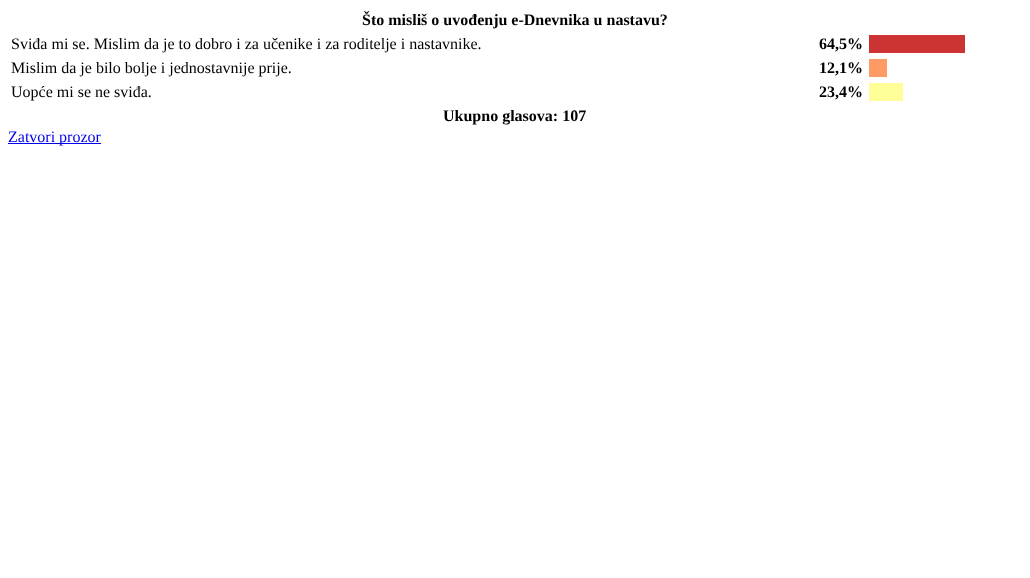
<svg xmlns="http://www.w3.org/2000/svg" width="1030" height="578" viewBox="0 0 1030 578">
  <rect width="100%" height="100%" fill="rgb(255,255,255)"/>
  <text x="362" y="25" font-family="Liberation Serif" font-size="16" font-weight="bold" fill="rgb(0,0,0)">Što misliš o uvođenju e-Dnevnika u nastavu?</text>
  <text x="11" y="49" font-family="Liberation Serif" font-size="16" fill="rgb(0,0,0)">Sviđa mi se. Mislim da je to dobro i za učenike i za roditelje i nastavnike.</text>
  <text x="819" y="49" font-family="Liberation Serif" font-size="16" font-weight="bold" fill="rgb(0,0,0)">64,5%</text>
  <rect x="869" y="35" width="96" height="18" fill="rgb(204,51,51)"/>
  <text x="11" y="73" font-family="Liberation Serif" font-size="16" fill="rgb(0,0,0)">Mislim da je bilo bolje i jednostavnije prije.</text>
  <text x="819" y="73" font-family="Liberation Serif" font-size="16" font-weight="bold" fill="rgb(0,0,0)">12,1%</text>
  <rect x="869" y="59" width="18" height="18" fill="rgb(255,153,102)"/>
  <text x="11" y="97" font-family="Liberation Serif" font-size="16" fill="rgb(0,0,0)">Uopće mi se ne sviđa.</text>
  <text x="819" y="97" font-family="Liberation Serif" font-size="16" font-weight="bold" fill="rgb(0,0,0)">23,4%</text>
  <rect x="869" y="83" width="34" height="18" fill="rgb(255,255,153)"/>
  <text x="443" y="121" font-family="Liberation Serif" font-size="16" font-weight="bold" fill="rgb(0,0,0)">Ukupno glasova: 107</text>
  <rect x="8" y="143" width="93" height="1" fill="rgb(0,0,238)"/>
  <text x="8" y="142" font-family="Liberation Serif" font-size="16" fill="rgb(0,0,238)">Zatvori prozor</text>
</svg>
